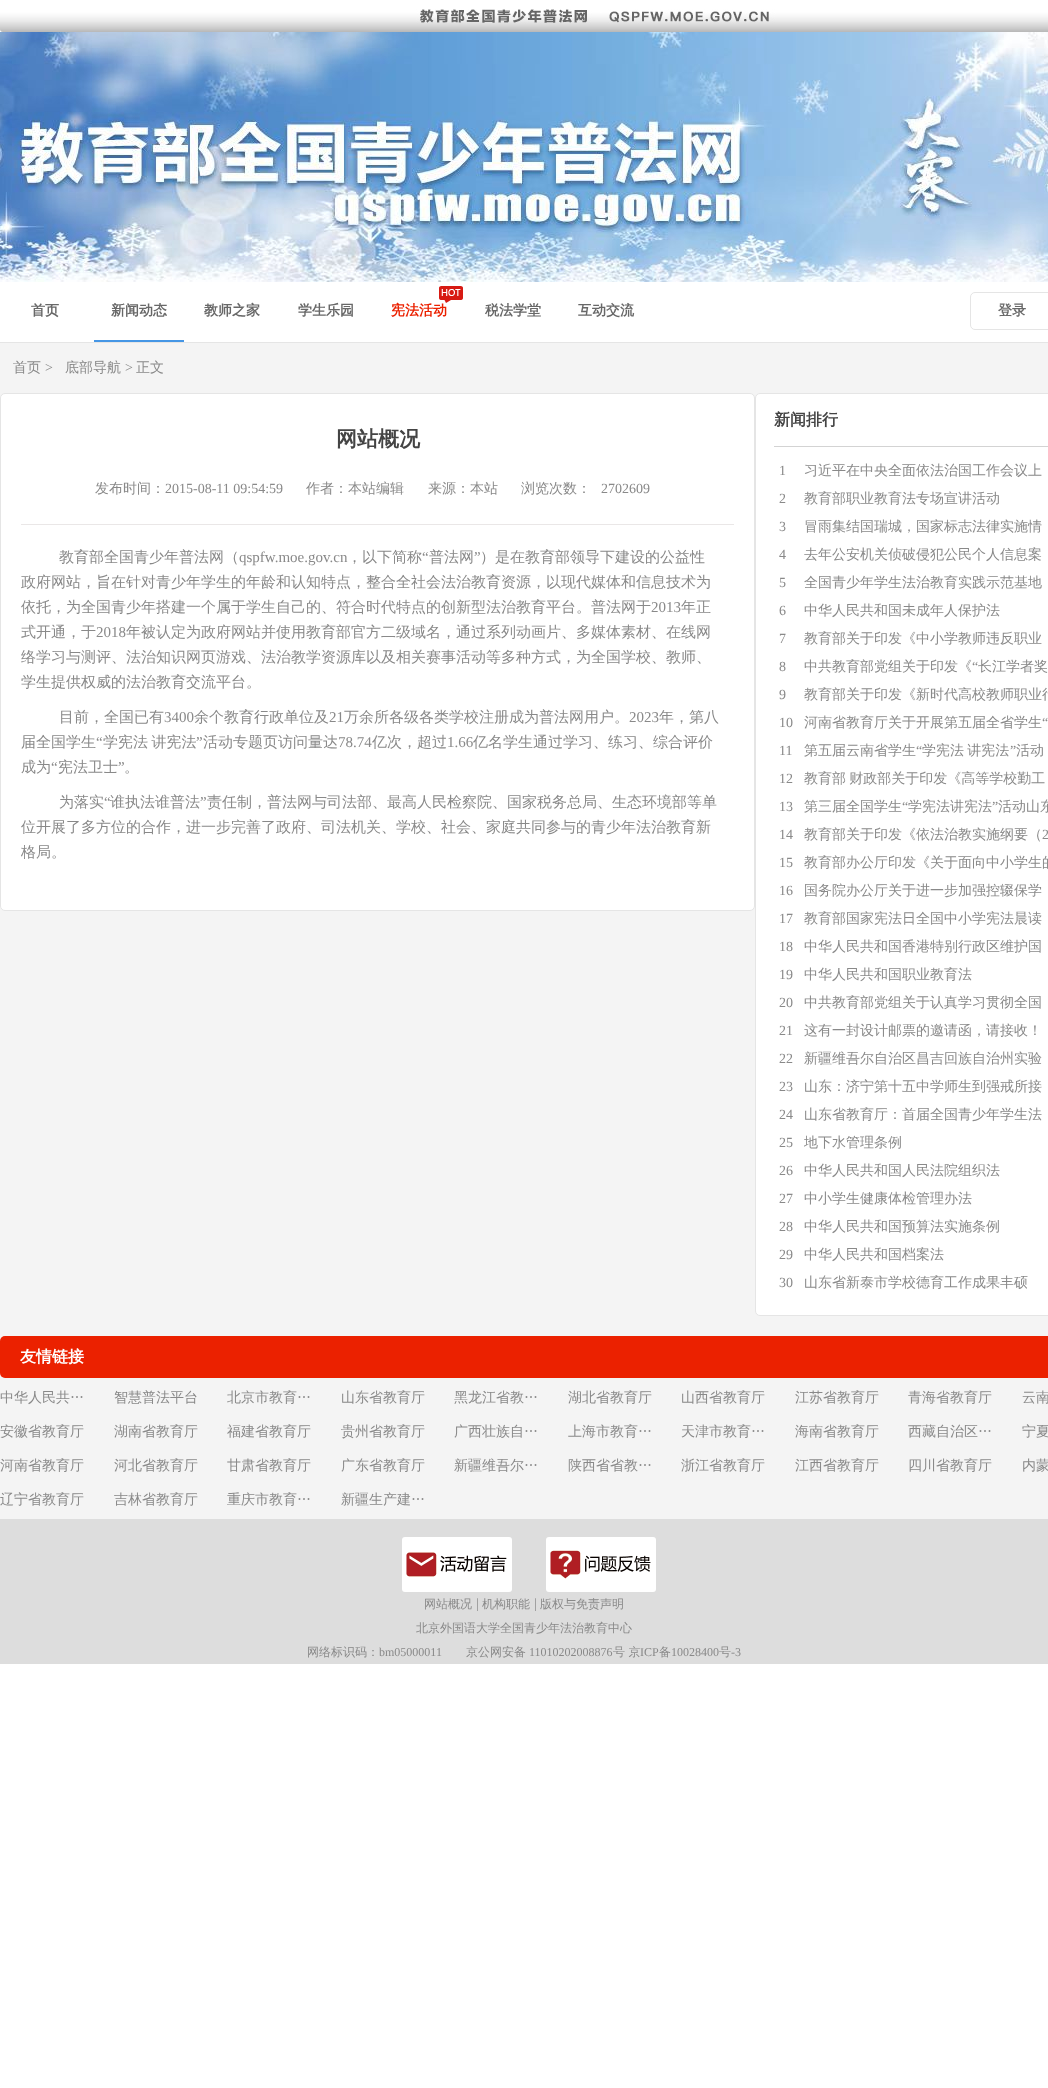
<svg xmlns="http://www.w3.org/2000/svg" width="1048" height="2088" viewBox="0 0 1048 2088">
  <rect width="100%" height="100%" fill="rgb(255,255,255)"/>
  <image x="0" y="9" width="1048" height="23" href="pic1.png"/>
  <image x="0" y="32" width="1048" height="250" href="pic2.png"/>
  <rect x="0" y="342" width="1048" height="1" fill="rgb(229,229,229)"/>
  <text x="31" y="315" font-family="WenQuanYi Zen Hei" font-size="14" font-weight="bold" fill="rgb(104,104,104)">首页</text>
  <rect x="94" y="340" width="90" height="2" fill="rgb(69,150,229)"/>
  <g font-family="WenQuanYi Zen Hei" font-size="14" font-weight="bold" fill="rgb(104,104,104)">
    <text x="111" y="315">新闻动态</text>
    <text x="204" y="315">教师之家</text>
    <text x="298" y="315">学生乐园</text>
  </g>
  <image x="439" y="286" width="24" height="17" href="pic3.png"/>
  <text x="391" y="315" font-family="WenQuanYi Zen Hei" font-size="14" font-weight="bold" fill="rgb(235,33,0)">宪法活动</text>
  <g font-family="WenQuanYi Zen Hei" font-size="14" font-weight="bold" fill="rgb(104,104,104)">
    <text x="485" y="315">税法学堂</text>
    <text x="578" y="315">互动交流</text>
  </g>
  <rect x="970.5" y="292.5" width="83" height="37" rx="4.5" fill="none" stroke="rgb(229,229,229)"/>
  <text x="998" y="315" font-family="WenQuanYi Zen Hei" font-size="14" font-weight="bold" fill="rgb(104,104,104)">登录</text>
  <rect x="0" y="343" width="1048" height="1176" fill="rgb(244,244,244)"/>
  <text x="13" y="372" font-family="WenQuanYi Zen Hei" font-size="14" font-weight="500" fill="rgb(137,137,137)">首页</text>
  <text x="45" y="372" font-family="Liberation Serif" font-size="14" fill="rgb(137,137,137)">&gt;</text>
  <text x="65" y="372" font-family="WenQuanYi Zen Hei" font-size="14" font-weight="500" fill="rgb(137,137,137)">底部导航</text>
  <text x="125" y="372" font-family="Liberation Serif" font-size="14" fill="rgb(137,137,137)">&gt;</text>
  <text x="136" y="372" font-family="WenQuanYi Zen Hei" font-size="14" font-weight="500" fill="rgb(137,137,137)">正文</text>
  <rect x="0.5" y="393.5" width="754" height="517" rx="4.5" fill="rgb(255,255,255)" stroke="rgb(229,229,229)"/>
  <rect x="21" y="524" width="713" height="1" fill="rgb(234,231,231)"/>
  <text x="336" y="446" font-family="WenQuanYi Zen Hei" font-size="21" font-weight="bold" fill="rgb(68,68,68)">网站概况</text>
  <text x="95" y="493" font-family="WenQuanYi Zen Hei" font-size="14" font-weight="500" fill="rgb(137,137,137)">发布时间：</text>
  <text x="165" y="493" font-family="Liberation Serif" font-size="14" fill="rgb(137,137,137)">2015-08-11 09:54:59</text>
  <g font-family="WenQuanYi Zen Hei" font-size="14" font-weight="500" fill="rgb(137,137,137)">
    <text x="306" y="493">作者：本站编辑</text>
    <text x="428" y="493">来源：本站</text>
    <text x="521" y="493">浏览次数：</text>
  </g>
  <text x="601" y="493" font-family="Liberation Serif" font-size="14" fill="rgb(137,137,137)">2702609</text>
  <text x="59" y="562" font-family="WenQuanYi Zen Hei" font-size="15" font-weight="500" fill="rgb(137,137,137)">教育部全国青少年普法网（</text>
  <text x="239" y="562" font-family="Liberation Serif" font-size="15" fill="rgb(137,137,137)">qspfw.moe.gov.cn</text>
  <text x="347" y="562" font-family="WenQuanYi Zen Hei" font-size="15" font-weight="500" fill="rgb(137,137,137)">，以下简称</text>
  <text x="422" y="562" font-family="Liberation Serif" font-size="15" fill="rgb(137,137,137)">“</text>
  <text x="429" y="562" font-family="WenQuanYi Zen Hei" font-size="15" font-weight="500" fill="rgb(137,137,137)">普法网</text>
  <text x="474" y="562" font-family="Liberation Serif" font-size="15" fill="rgb(137,137,137)">”</text>
  <g font-family="WenQuanYi Zen Hei" font-size="15" font-weight="500" fill="rgb(137,137,137)">
    <text x="480" y="562">）是在教育部领导下建设的公益性</text>
    <text>
      <tspan x="21" y="587">政府网站，旨在针对青少年学生的年龄和认知特点，整合全社会法治教育资源，以现代媒体和信息技术为</tspan>
      <tspan x="21" y="612">依托，为全国青少年搭建一个属于学生自己的、符合时代特点的创新型法治教育平台。普法网于</tspan>
    </text>
  </g>
  <text x="651" y="612" font-family="Liberation Serif" font-size="15" fill="rgb(137,137,137)">2013</text>
  <g font-family="WenQuanYi Zen Hei" font-size="15" font-weight="500" fill="rgb(137,137,137)">
    <text x="681" y="612">年正</text>
    <text x="21" y="637">式开通，于</text>
  </g>
  <text x="96" y="637" font-family="Liberation Serif" font-size="15" fill="rgb(137,137,137)">2018</text>
  <g font-family="WenQuanYi Zen Hei" font-size="15" font-weight="500" fill="rgb(137,137,137)">
    <text x="126" y="637">年被认定为政府网站并使用教育部官方二级域名，通过系列动画片、多媒体素材、在线网</text>
    <text>
      <tspan x="21" y="662">络学习与测评、法治知识网页游戏、法治教学资源库以及相关赛事活动等多种方式，为全国学校、教师、</tspan>
      <tspan x="21" y="687">学生提供权威的法治教育交流平台。</tspan>
    </text>
    <text x="59" y="722">目前，全国已有</text>
  </g>
  <text x="164" y="722" font-family="Liberation Serif" font-size="15" fill="rgb(137,137,137)">3400</text>
  <text x="194" y="722" font-family="WenQuanYi Zen Hei" font-size="15" font-weight="500" fill="rgb(137,137,137)">余个教育行政单位及</text>
  <text x="329" y="722" font-family="Liberation Serif" font-size="15" fill="rgb(137,137,137)">21</text>
  <text x="344" y="722" font-family="WenQuanYi Zen Hei" font-size="15" font-weight="500" fill="rgb(137,137,137)">万余所各级各类学校注册成为普法网用户。</text>
  <text x="629" y="722" font-family="Liberation Serif" font-size="15" fill="rgb(137,137,137)">2023</text>
  <g font-family="WenQuanYi Zen Hei" font-size="15" font-weight="500" fill="rgb(137,137,137)">
    <text x="659" y="722">年，第八</text>
    <text x="21" y="747">届全国学生</text>
  </g>
  <text x="96" y="747" font-family="Liberation Serif" font-size="15" fill="rgb(137,137,137)">“</text>
  <text x="103" y="747" word-spacing="-1" font-family="WenQuanYi Zen Hei" font-size="15" font-weight="500" fill="rgb(137,137,137)">学宪法 讲宪法</text>
  <text x="196" y="747" font-family="Liberation Serif" font-size="15" fill="rgb(137,137,137)">”</text>
  <text x="203" y="747" font-family="WenQuanYi Zen Hei" font-size="15" font-weight="500" fill="rgb(137,137,137)">活动专题页访问量达</text>
  <text x="338" y="747" font-family="Liberation Serif" font-size="15" fill="rgb(137,137,137)">78.74</text>
  <text x="372" y="747" font-family="WenQuanYi Zen Hei" font-size="15" font-weight="500" fill="rgb(137,137,137)">亿次，超过</text>
  <text x="447" y="747" font-family="Liberation Serif" font-size="15" fill="rgb(137,137,137)">1.66</text>
  <g font-family="WenQuanYi Zen Hei" font-size="15" font-weight="500" fill="rgb(137,137,137)">
    <text x="473" y="747">亿名学生通过学习、练习、综合评价</text>
    <text x="21" y="772">成为</text>
  </g>
  <text x="51" y="772" font-family="Liberation Serif" font-size="15" fill="rgb(137,137,137)">“</text>
  <text x="58" y="772" font-family="WenQuanYi Zen Hei" font-size="15" font-weight="500" fill="rgb(137,137,137)">宪法卫士</text>
  <text x="118" y="772" font-family="Liberation Serif" font-size="15" fill="rgb(137,137,137)">”</text>
  <g font-family="WenQuanYi Zen Hei" font-size="15" font-weight="500" fill="rgb(137,137,137)">
    <text x="124" y="772">。</text>
    <text x="59" y="807">为落实</text>
  </g>
  <text x="104" y="807" font-family="Liberation Serif" font-size="15" fill="rgb(137,137,137)">“</text>
  <text x="110" y="807" font-family="WenQuanYi Zen Hei" font-size="15" font-weight="500" fill="rgb(137,137,137)">谁执法谁普法</text>
  <text x="200" y="807" font-family="Liberation Serif" font-size="15" fill="rgb(137,137,137)">”</text>
  <g font-family="WenQuanYi Zen Hei" font-size="15" font-weight="500" fill="rgb(137,137,137)">
    <text x="207" y="807">责任制，普法网与司法部、最高人民检察院、国家税务总局、生态环境部等单</text>
    <text>
      <tspan x="21" y="832">位开展了多方位的合作，进一步完善了政府、司法机关、学校、社会、家庭共同参与的青少年法治教育新</tspan>
      <tspan x="21" y="857">格局。</tspan>
    </text>
  </g>
  <rect x="755.5" y="393.5" width="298" height="922" rx="4.5" fill="rgb(255,255,255)" stroke="rgb(229,229,229)"/>
  <rect x="774" y="446" width="274" height="1" fill="rgb(211,211,211)"/>
  <text x="774" y="425" font-family="WenQuanYi Zen Hei" font-size="16" font-weight="bold" fill="rgb(68,68,68)">新闻排行</text>
  <text x="779" y="475" font-family="Liberation Serif" font-size="14" fill="rgb(137,137,137)">1</text>
  <text x="804" y="475" font-family="WenQuanYi Zen Hei" font-size="14" font-weight="500" fill="rgb(137,137,137)">习近平在中央全面依法治国工作会议上</text>
  <text x="779" y="503" font-family="Liberation Serif" font-size="14" fill="rgb(137,137,137)">2</text>
  <text x="804" y="503" font-family="WenQuanYi Zen Hei" font-size="14" font-weight="500" fill="rgb(137,137,137)">教育部职业教育法专场宣讲活动</text>
  <text x="779" y="531" font-family="Liberation Serif" font-size="14" fill="rgb(137,137,137)">3</text>
  <text x="804" y="531" font-family="WenQuanYi Zen Hei" font-size="14" font-weight="500" fill="rgb(137,137,137)">冒雨集结国瑞城，国家标志法律实施情</text>
  <text x="779" y="559" font-family="Liberation Serif" font-size="14" fill="rgb(137,137,137)">4</text>
  <text x="804" y="559" font-family="WenQuanYi Zen Hei" font-size="14" font-weight="500" fill="rgb(137,137,137)">去年公安机关侦破侵犯公民个人信息案</text>
  <text x="779" y="587" font-family="Liberation Serif" font-size="14" fill="rgb(137,137,137)">5</text>
  <text x="804" y="587" font-family="WenQuanYi Zen Hei" font-size="14" font-weight="500" fill="rgb(137,137,137)">全国青少年学生法治教育实践示范基地</text>
  <text x="779" y="615" font-family="Liberation Serif" font-size="14" fill="rgb(137,137,137)">6</text>
  <text x="804" y="615" font-family="WenQuanYi Zen Hei" font-size="14" font-weight="500" fill="rgb(137,137,137)">中华人民共和国未成年人保护法</text>
  <text x="779" y="643" font-family="Liberation Serif" font-size="14" fill="rgb(137,137,137)">7</text>
  <text x="804" y="643" font-family="WenQuanYi Zen Hei" font-size="14" font-weight="500" fill="rgb(137,137,137)">教育部关于印发《中小学教师违反职业</text>
  <text x="779" y="671" font-family="Liberation Serif" font-size="14" fill="rgb(137,137,137)">8</text>
  <text x="804" y="671" font-family="WenQuanYi Zen Hei" font-size="14" font-weight="500" fill="rgb(137,137,137)">中共教育部党组关于印发《</text>
  <text x="972" y="671" font-family="Liberation Serif" font-size="14" fill="rgb(137,137,137)">“</text>
  <text x="978" y="671" font-family="WenQuanYi Zen Hei" font-size="14" font-weight="500" fill="rgb(137,137,137)">长江学者奖</text>
  <text x="779" y="699" font-family="Liberation Serif" font-size="14" fill="rgb(137,137,137)">9</text>
  <text x="804" y="699" font-family="WenQuanYi Zen Hei" font-size="14" font-weight="500" fill="rgb(137,137,137)">教育部关于印发《新时代高校教师职业行</text>
  <text x="779" y="727" font-family="Liberation Serif" font-size="14" fill="rgb(137,137,137)">10</text>
  <text x="804" y="727" font-family="WenQuanYi Zen Hei" font-size="14" font-weight="500" fill="rgb(137,137,137)">河南省教育厅关于开展第五届全省学生</text>
  <g font-family="Liberation Serif" font-size="14" fill="rgb(137,137,137)">
    <text x="1042" y="727">“</text>
    <text x="779" y="755">11</text>
  </g>
  <text x="804" y="755" font-family="WenQuanYi Zen Hei" font-size="14" font-weight="500" fill="rgb(137,137,137)">第五届云南省学生</text>
  <text x="916" y="755" font-family="Liberation Serif" font-size="14" fill="rgb(137,137,137)">“</text>
  <text x="922" y="755" word-spacing="-1" font-family="WenQuanYi Zen Hei" font-size="14" font-weight="500" fill="rgb(137,137,137)">学宪法 讲宪法</text>
  <text x="1010" y="755" font-family="Liberation Serif" font-size="14" fill="rgb(137,137,137)">”</text>
  <text x="1016" y="755" word-spacing="-1" font-family="WenQuanYi Zen Hei" font-size="14" font-weight="500" fill="rgb(137,137,137)">活动</text>
  <text x="779" y="783" font-family="Liberation Serif" font-size="14" fill="rgb(137,137,137)">12</text>
  <text x="804" y="783" word-spacing="-1" font-family="WenQuanYi Zen Hei" font-size="14" font-weight="500" fill="rgb(137,137,137)">教育部 财政部关于印发《高等学校勤工</text>
  <text x="779" y="811" font-family="Liberation Serif" font-size="14" fill="rgb(137,137,137)">13</text>
  <text x="804" y="811" font-family="WenQuanYi Zen Hei" font-size="14" font-weight="500" fill="rgb(137,137,137)">第三届全国学生</text>
  <text x="902" y="811" font-family="Liberation Serif" font-size="14" fill="rgb(137,137,137)">“</text>
  <text x="908" y="811" font-family="WenQuanYi Zen Hei" font-size="14" font-weight="500" fill="rgb(137,137,137)">学宪法讲宪法</text>
  <text x="992" y="811" font-family="Liberation Serif" font-size="14" fill="rgb(137,137,137)">”</text>
  <text x="998" y="811" font-family="WenQuanYi Zen Hei" font-size="14" font-weight="500" fill="rgb(137,137,137)">活动山东</text>
  <text x="779" y="839" font-family="Liberation Serif" font-size="14" fill="rgb(137,137,137)">14</text>
  <text x="804" y="839" font-family="WenQuanYi Zen Hei" font-size="14" font-weight="500" fill="rgb(137,137,137)">教育部关于印发《依法治教实施纲要（</text>
  <g font-family="Liberation Serif" font-size="14" fill="rgb(137,137,137)">
    <text x="1042" y="839">2</text>
    <text x="779" y="867">15</text>
  </g>
  <text x="804" y="867" font-family="WenQuanYi Zen Hei" font-size="14" font-weight="500" fill="rgb(137,137,137)">教育部办公厅印发《关于面向中小学生的</text>
  <text x="779" y="895" font-family="Liberation Serif" font-size="14" fill="rgb(137,137,137)">16</text>
  <text x="804" y="895" font-family="WenQuanYi Zen Hei" font-size="14" font-weight="500" fill="rgb(137,137,137)">国务院办公厅关于进一步加强控辍保学</text>
  <text x="779" y="923" font-family="Liberation Serif" font-size="14" fill="rgb(137,137,137)">17</text>
  <text x="804" y="923" font-family="WenQuanYi Zen Hei" font-size="14" font-weight="500" fill="rgb(137,137,137)">教育部国家宪法日全国中小学宪法晨读</text>
  <text x="779" y="951" font-family="Liberation Serif" font-size="14" fill="rgb(137,137,137)">18</text>
  <text x="804" y="951" font-family="WenQuanYi Zen Hei" font-size="14" font-weight="500" fill="rgb(137,137,137)">中华人民共和国香港特别行政区维护国</text>
  <text x="779" y="979" font-family="Liberation Serif" font-size="14" fill="rgb(137,137,137)">19</text>
  <text x="804" y="979" font-family="WenQuanYi Zen Hei" font-size="14" font-weight="500" fill="rgb(137,137,137)">中华人民共和国职业教育法</text>
  <text x="779" y="1007" font-family="Liberation Serif" font-size="14" fill="rgb(137,137,137)">20</text>
  <text x="804" y="1007" font-family="WenQuanYi Zen Hei" font-size="14" font-weight="500" fill="rgb(137,137,137)">中共教育部党组关于认真学习贯彻全国</text>
  <text x="779" y="1035" font-family="Liberation Serif" font-size="14" fill="rgb(137,137,137)">21</text>
  <text x="804" y="1035" font-family="WenQuanYi Zen Hei" font-size="14" font-weight="500" fill="rgb(137,137,137)">这有一封设计邮票的邀请函，请接收！</text>
  <text x="779" y="1063" font-family="Liberation Serif" font-size="14" fill="rgb(137,137,137)">22</text>
  <text x="804" y="1063" font-family="WenQuanYi Zen Hei" font-size="14" font-weight="500" fill="rgb(137,137,137)">新疆维吾尔自治区昌吉回族自治州实验</text>
  <text x="779" y="1091" font-family="Liberation Serif" font-size="14" fill="rgb(137,137,137)">23</text>
  <text x="804" y="1091" font-family="WenQuanYi Zen Hei" font-size="14" font-weight="500" fill="rgb(137,137,137)">山东：济宁第十五中学师生到强戒所接</text>
  <text x="779" y="1119" font-family="Liberation Serif" font-size="14" fill="rgb(137,137,137)">24</text>
  <text x="804" y="1119" font-family="WenQuanYi Zen Hei" font-size="14" font-weight="500" fill="rgb(137,137,137)">山东省教育厅：首届全国青少年学生法</text>
  <text x="779" y="1147" font-family="Liberation Serif" font-size="14" fill="rgb(137,137,137)">25</text>
  <text x="804" y="1147" font-family="WenQuanYi Zen Hei" font-size="14" font-weight="500" fill="rgb(137,137,137)">地下水管理条例</text>
  <text x="779" y="1175" font-family="Liberation Serif" font-size="14" fill="rgb(137,137,137)">26</text>
  <text x="804" y="1175" font-family="WenQuanYi Zen Hei" font-size="14" font-weight="500" fill="rgb(137,137,137)">中华人民共和国人民法院组织法</text>
  <text x="779" y="1203" font-family="Liberation Serif" font-size="14" fill="rgb(137,137,137)">27</text>
  <text x="804" y="1203" font-family="WenQuanYi Zen Hei" font-size="14" font-weight="500" fill="rgb(137,137,137)">中小学生健康体检管理办法</text>
  <text x="779" y="1231" font-family="Liberation Serif" font-size="14" fill="rgb(137,137,137)">28</text>
  <text x="804" y="1231" font-family="WenQuanYi Zen Hei" font-size="14" font-weight="500" fill="rgb(137,137,137)">中华人民共和国预算法实施条例</text>
  <text x="779" y="1259" font-family="Liberation Serif" font-size="14" fill="rgb(137,137,137)">29</text>
  <text x="804" y="1259" font-family="WenQuanYi Zen Hei" font-size="14" font-weight="500" fill="rgb(137,137,137)">中华人民共和国档案法</text>
  <text x="779" y="1287" font-family="Liberation Serif" font-size="14" fill="rgb(137,137,137)">30</text>
  <text x="804" y="1287" font-family="WenQuanYi Zen Hei" font-size="14" font-weight="500" fill="rgb(137,137,137)">山东省新泰市学校德育工作成果丰硕</text>
  <rect x="0" y="1336" width="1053" height="42" rx="5" fill="rgb(235,33,0)"/>
  <text x="20" y="1362" font-family="WenQuanYi Zen Hei" font-size="16" font-weight="bold" fill="rgb(255,255,255)">友情链接</text>
  <g font-family="WenQuanYi Zen Hei" font-size="14" font-weight="500" fill="rgb(137,137,137)">
    <text x="0" y="1402">中华人民共…</text>
    <text x="114" y="1402">智慧普法平台</text>
    <text x="227" y="1402">北京市教育…</text>
    <text x="341" y="1402">山东省教育厅</text>
    <text x="454" y="1402">黑龙江省教…</text>
    <text x="568" y="1402">湖北省教育厅</text>
    <text x="681" y="1402">山西省教育厅</text>
    <text x="795" y="1402">江苏省教育厅</text>
    <text x="908" y="1402">青海省教育厅</text>
    <text x="1022" y="1402">云南</text>
    <text x="0" y="1436">安徽省教育厅</text>
    <text x="114" y="1436">湖南省教育厅</text>
    <text x="227" y="1436">福建省教育厅</text>
    <text x="341" y="1436">贵州省教育厅</text>
    <text x="454" y="1436">广西壮族自…</text>
    <text x="568" y="1436">上海市教育…</text>
    <text x="681" y="1436">天津市教育…</text>
    <text x="795" y="1436">海南省教育厅</text>
    <text x="908" y="1436">西藏自治区…</text>
    <text x="1022" y="1436">宁夏</text>
    <text x="0" y="1470">河南省教育厅</text>
    <text x="114" y="1470">河北省教育厅</text>
    <text x="227" y="1470">甘肃省教育厅</text>
    <text x="341" y="1470">广东省教育厅</text>
    <text x="454" y="1470">新疆维吾尔…</text>
    <text x="568" y="1470">陕西省省教…</text>
    <text x="681" y="1470">浙江省教育厅</text>
    <text x="795" y="1470">江西省教育厅</text>
    <text x="908" y="1470">四川省教育厅</text>
    <text x="1022" y="1470">内蒙</text>
    <text x="0" y="1504">辽宁省教育厅</text>
    <text x="114" y="1504">吉林省教育厅</text>
    <text x="227" y="1504">重庆市教育…</text>
    <text x="341" y="1504">新疆生产建…</text>
  </g>
  <rect x="0" y="1519" width="1048" height="145" fill="rgb(221,221,221)"/>
  <image x="402" y="1537" width="110" height="55" href="pic4.png"/>
  <image x="546" y="1537" width="110" height="55" href="pic5.png"/>
  <text x="424" y="1608" font-family="WenQuanYi Zen Hei" font-size="12" font-weight="500" fill="rgb(137,137,137)">网站概况</text>
  <text x="476" y="1608" font-family="Liberation Serif" font-size="14" fill="rgb(137,137,137)">|</text>
  <text x="482" y="1608" font-family="WenQuanYi Zen Hei" font-size="12" font-weight="500" fill="rgb(137,137,137)">机构职能</text>
  <text x="534" y="1608" font-family="Liberation Serif" font-size="14" fill="rgb(137,137,137)">|</text>
  <g font-family="WenQuanYi Zen Hei" font-size="12" font-weight="500" fill="rgb(137,137,137)">
    <text x="540" y="1608">版权与免责声明</text>
    <text x="416" y="1632">北京外国语大学全国青少年法治教育中心</text>
    <text x="307" y="1656">网络标识码：</text>
  </g>
  <text x="379" y="1656" font-family="Liberation Serif" font-size="12" fill="rgb(137,137,137)">bm05000011</text>
  <text x="466" y="1656" font-family="WenQuanYi Zen Hei" font-size="12" font-weight="500" fill="rgb(137,137,137)">京公网安备</text>
  <text x="529" y="1656" font-family="Liberation Serif" font-size="12" fill="rgb(137,137,137)">11010202008876</text>
  <text x="613" y="1656" font-family="WenQuanYi Zen Hei" font-size="12" font-weight="500" fill="rgb(137,137,137)">号 京</text>
  <text x="640" y="1656" font-family="Liberation Serif" font-size="12" fill="rgb(137,137,137)">ICP</text>
  <text x="659" y="1656" font-family="WenQuanYi Zen Hei" font-size="12" font-weight="500" fill="rgb(137,137,137)">备</text>
  <text x="671" y="1656" font-family="Liberation Serif" font-size="12" fill="rgb(137,137,137)">10028400</text>
  <text x="719" y="1656" font-family="WenQuanYi Zen Hei" font-size="12" font-weight="500" fill="rgb(137,137,137)">号</text>
  <text x="731" y="1656" font-family="Liberation Serif" font-size="12" fill="rgb(137,137,137)">-3</text>
</svg>
